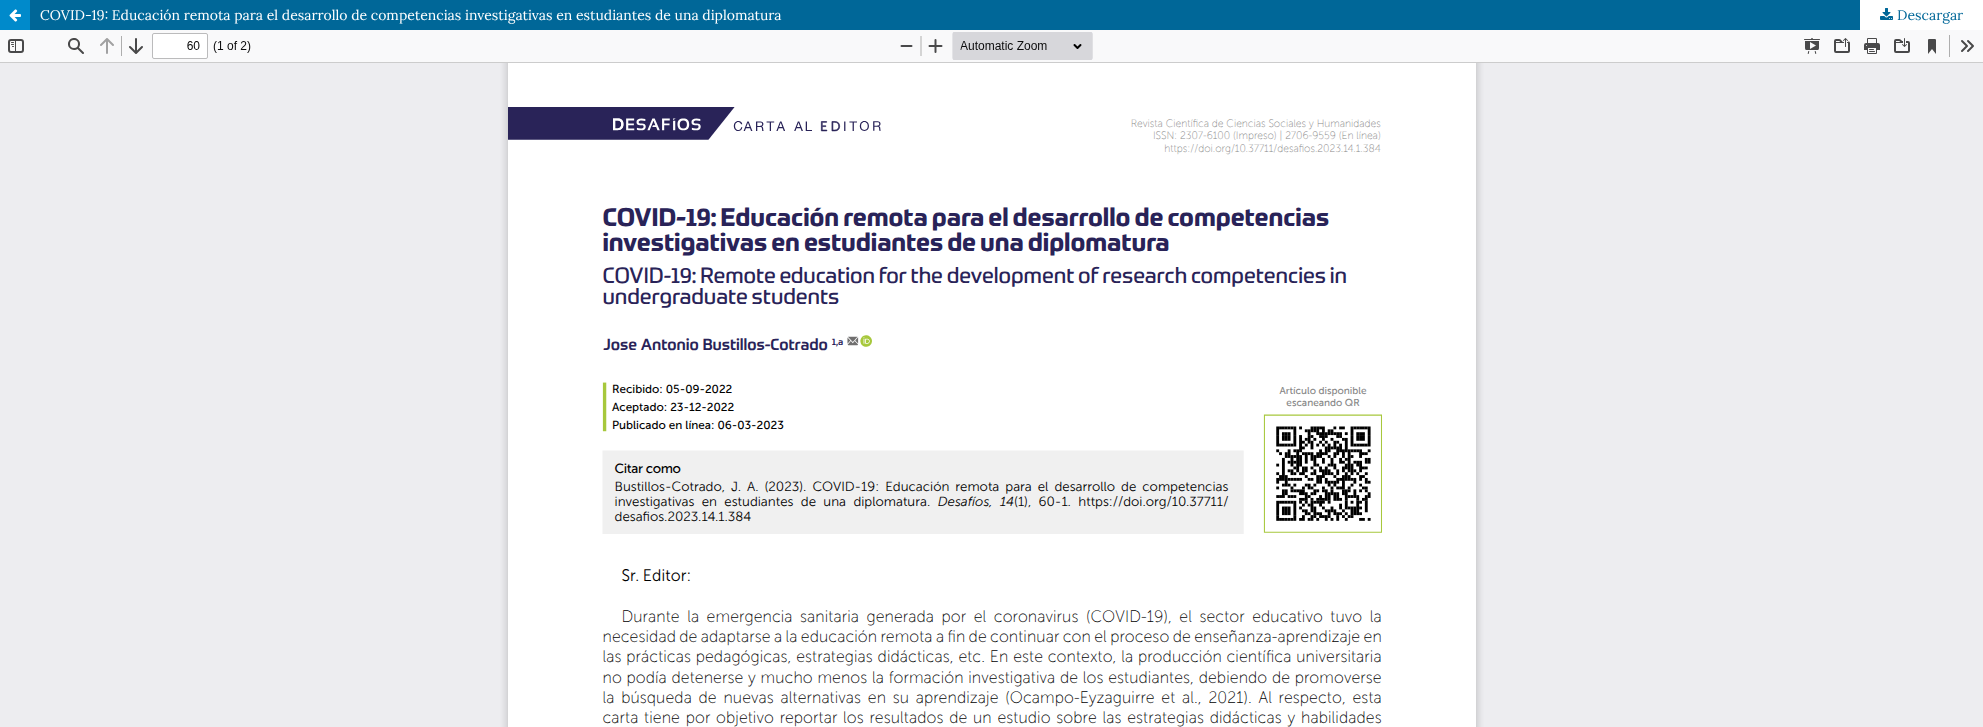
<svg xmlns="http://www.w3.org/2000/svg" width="1983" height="727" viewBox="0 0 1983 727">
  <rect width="100%" height="100%" fill="rgb(255,255,255)"/>
  <rect x="30" y="0" width="1830" height="30" fill="rgb(0,103,152)"/>
  <rect x="0" y="0" width="30" height="30" fill="rgb(0,138,203)"/>
  <image x="9" y="9" width="12" height="13" href="pic1.png"/>
  <text x="40" y="20" font-family="Lora" font-size="14" fill="rgb(255,255,255)">COVID-19: Educación remota para el desarrollo de competencias investigativas en estudiantes de una diplomatura</text>
  <image x="1880" y="8" width="13" height="12" href="pic2.png"/>
  <text x="1897" y="20" font-family="Lora" font-size="14" fill="rgb(0,103,152)">Descargar</text>
  <image x="0" y="30" width="1983" height="697" href="pic3.png"/>
</svg>
